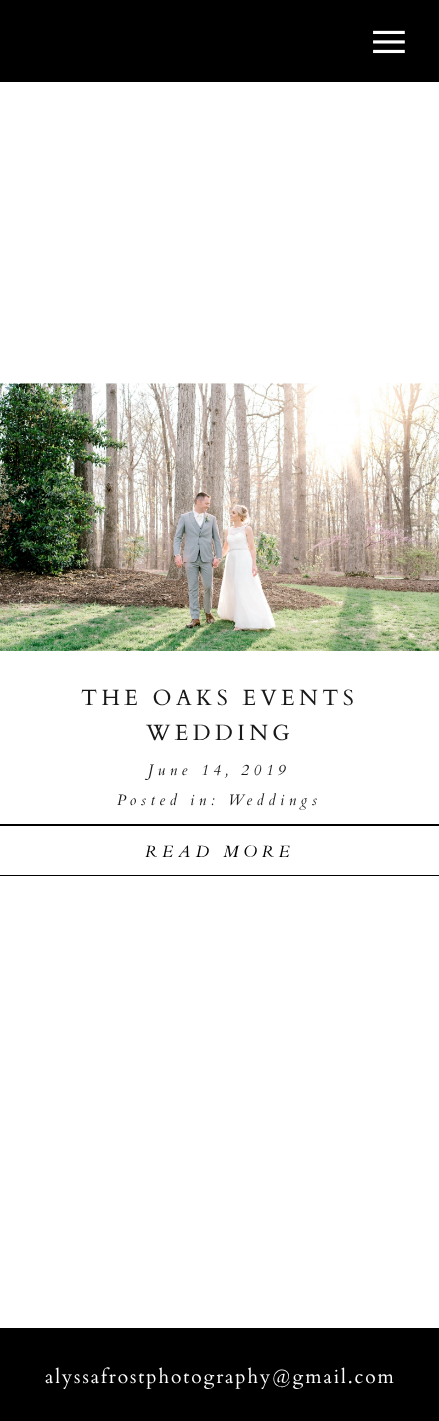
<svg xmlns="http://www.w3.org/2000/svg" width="439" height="1421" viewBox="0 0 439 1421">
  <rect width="100%" height="100%" fill="rgb(255,255,255)"/>
  <rect x="0" y="0" width="439" height="82" fill="rgb(0,0,0)"/>
  <image x="373" y="30" width="32" height="24" href="pic1.png"/>
  <image x="0" y="383" width="439" height="268" href="pic2.png"/>
  <g font-family="Cardo" font-size="22" letter-spacing="4.4" fill="rgb(25,25,26)">
    <text x="81" y="705">THE OAKS EVENTS</text>
    <text x="146" y="740">WEDDING</text>
  </g>
  <g font-family="Cardo" font-size="15.1" font-style="italic" letter-spacing="4.5" fill="rgb(25,25,26)">
    <text x="148" y="775">June 14, 2019</text>
    <text x="117" y="805">Posted in: Weddings</text>
  </g>
  <rect x="0" y="824" width="439" height="2" fill="rgb(0,0,0)"/>
  <text x="145" y="857" font-family="Cardo" font-size="16.5" font-style="italic" letter-spacing="5" fill="rgb(0,0,0)">READ MORE</text>
  <rect x="0" y="875" width="439" height="1" fill="rgb(0,0,0)"/>
  <rect x="0" y="1328" width="439" height="93" fill="rgb(0,0,0)"/>
  <text x="45" y="1383" font-family="Cardo" font-size="19.25" letter-spacing="1.9" fill="rgb(255,255,255)">alyssafrostphotography@gmail.com</text>
</svg>
